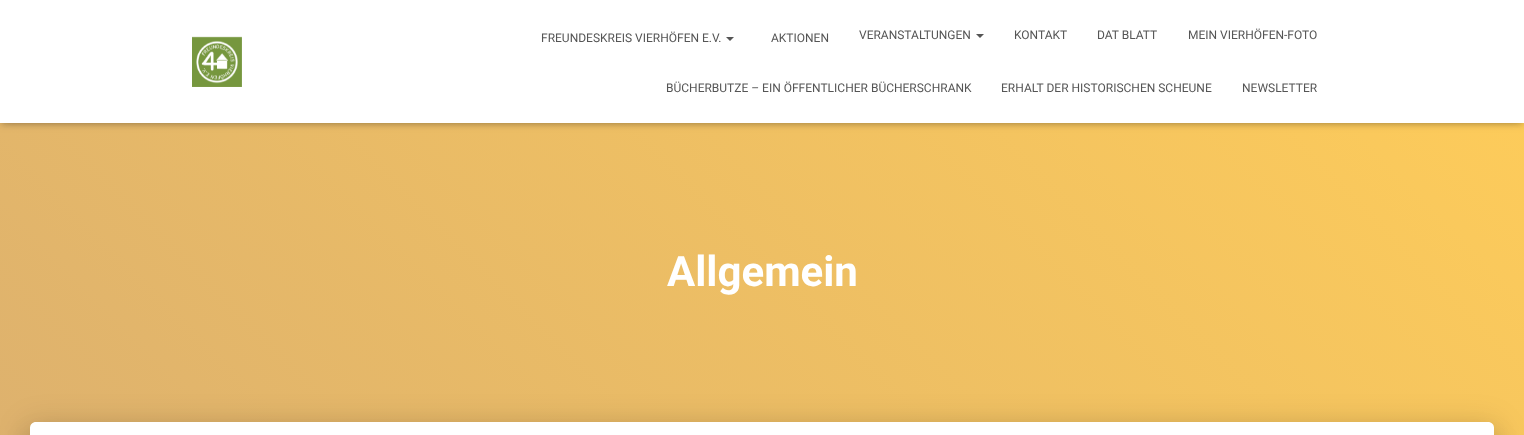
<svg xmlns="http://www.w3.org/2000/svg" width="1524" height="435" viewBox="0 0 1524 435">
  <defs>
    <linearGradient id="g1" gradientUnits="userSpaceOnUse" x1="261" y1="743" x2="1264" y2="-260"><stop offset="0" stop-color="rgb(221,177,110)"/><stop offset="1" stop-color="rgb(255,205,89)"/></linearGradient>
  </defs>
  <rect width="100%" height="100%" fill="rgb(255,255,255)"/>
  <rect x="0" y="123" width="1524" height="312" fill="url(#g1)"/>
  <rect x="2" y="6" width="1520" height="119" fill="rgba(0,0,0,0.1)" filter="blur(2.5px)"/>
  <rect x="0" y="1" width="1524" height="123" fill="rgba(0,0,0,0.12)" filter="blur(5px)"/>
  <rect x="6" y="7" width="1512" height="111" fill="rgba(0,0,0,0.42)" filter="blur(5px)"/>
  <rect x="0" y="0" width="1524" height="123" fill="rgb(255,255,255)"/>
  <image x="192" y="36" width="50" height="51" href="pic1.png"/>
  <text x="541" y="42" font-family="Roboto" font-size="12" fill="rgb(85,85,85)">FREUNDESKREIS VIERHÖFEN E.V.</text>
  <path d="M726 37H734L730 41Z" fill="rgb(85,85,85)"/>
  <g font-family="Roboto" font-size="12" fill="rgb(85,85,85)">
    <text x="771" y="42">AKTIONEN</text>
    <text x="859" y="39">VERANSTALTUNGEN</text>
  </g>
  <path d="M976 34H984L980 38Z" fill="rgb(85,85,85)"/>
  <g font-family="Roboto" font-size="12" fill="rgb(85,85,85)">
    <text x="1014" y="39">KONTAKT</text>
    <text x="1097" y="39">DAT BLATT</text>
    <text x="1188" y="39">MEIN VIERHÖFEN-FOTO</text>
    <text x="666" y="92">BÜCHERBUTZE – EIN ÖFFENTLICHER BÜCHERSCHRANK</text>
    <text x="1001" y="92">ERHALT DER HISTORISCHEN SCHEUNE</text>
    <text x="1242" y="92">NEWSLETTER</text>
  </g>
  <text x="667" y="286" font-family="Roboto" font-size="42" font-weight="bold" fill="rgb(255,255,255)">Allgemein</text>
  <rect x="25" y="423" width="1474" height="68" rx="11" fill="rgba(0,0,0,0.12)" filter="blur(15px)"/>
  <rect x="28" y="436" width="1468" height="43" rx="8" fill="rgba(0,0,0,0.14)" filter="blur(12px)"/>
  <path d="M36 422H1488C1491.5 422 1494 424.5 1494 428V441H30V428C30 424.5 32.5 422 36 422Z" fill="rgb(255,255,255)"/>
</svg>
